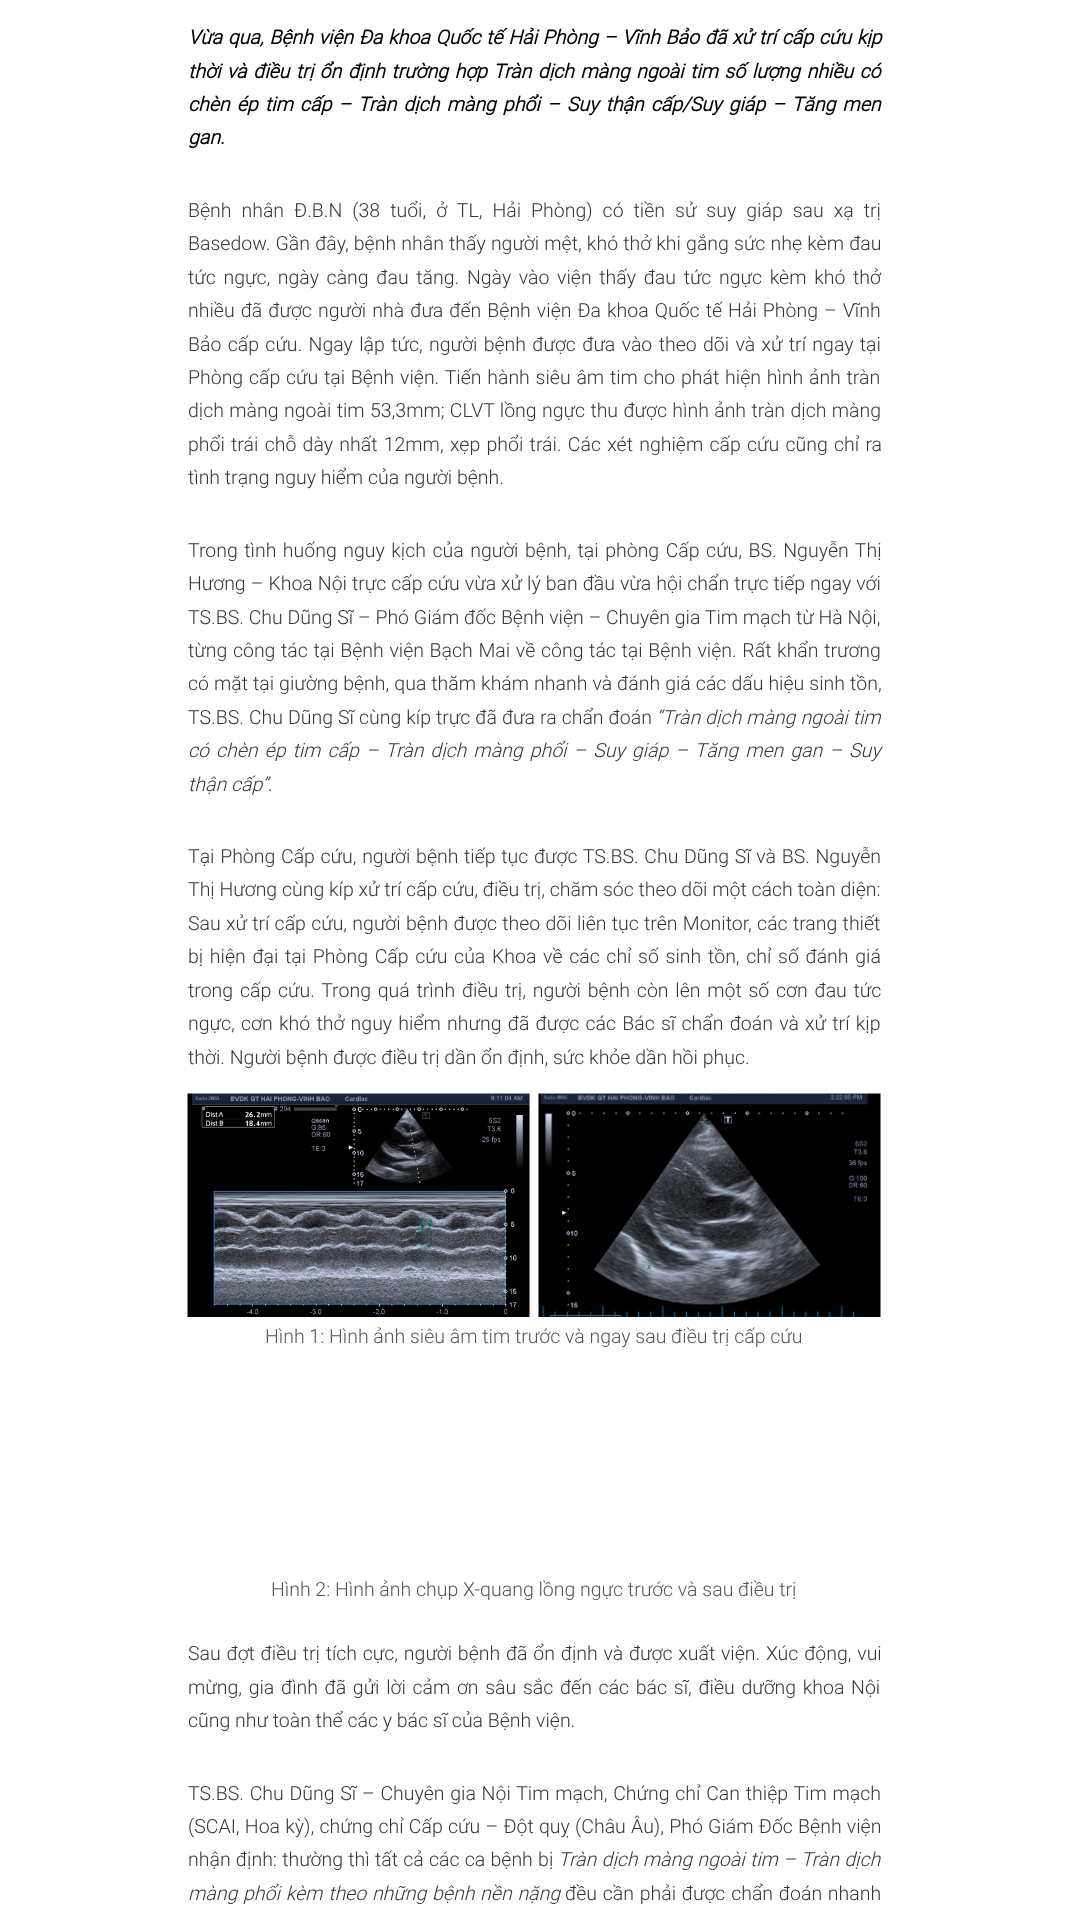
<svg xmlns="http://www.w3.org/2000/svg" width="1067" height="1906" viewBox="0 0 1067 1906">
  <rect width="100%" height="100%" fill="rgb(255,255,255)"/>
  <g font-family="Roboto" font-size="19.5" font-weight="bold" font-style="italic" fill="rgb(0,0,0)">
    <text>
      <tspan x="188" y="44" word-spacing="1">Vừa qua, Bệnh viện Đa khoa Quốc tế Hải Phòng – Vĩnh Bảo đã xử trí cấp cứu kịp</tspan>
      <tspan x="188" y="78" word-spacing="1.75">thời và điều trị ổn định trường hợp Tràn dịch màng ngoài tim số lượng nhiều có</tspan>
      <tspan x="188" y="111" word-spacing="2.4">chèn ép tim cấp – Tràn dịch màng phổi – Suy thận cấp/Suy giáp – Tăng men</tspan>
      <tspan x="188" y="144">gan.</tspan>
    </text>
  </g>
  <g font-family="Roboto" font-size="19.5" font-weight="300" fill="rgb(55,54,54)">
    <text>
      <tspan x="188" y="217" word-spacing="5.25">Bệnh nhân Đ.B.N (38 tuổi, ở TL, Hải Phòng) có tiền sử suy giáp sau xạ trị</tspan>
      <tspan x="188" y="250" word-spacing="0.4">Basedow. Gần đây, bệnh nhân thấy người mệt, khó thở khi gắng sức nhẹ kèm đau</tspan>
      <tspan x="188" y="284" word-spacing="2.9">tức ngực, ngày càng đau tăng. Ngày vào viện thấy đau tức ngực kèm khó thở</tspan>
      <tspan x="188" y="317" word-spacing="1.3">nhiều đã được người nhà đưa đến Bệnh viện Đa khoa Quốc tế Hải Phòng – Vĩnh</tspan>
      <tspan x="188" y="351" word-spacing="1.6">Bảo cấp cứu. Ngay lập tức, người bệnh được đưa vào theo dõi và xử trí ngay tại</tspan>
      <tspan x="188" y="384" word-spacing="1">Phòng cấp cứu tại Bệnh viện. Tiến hành siêu âm tim cho phát hiện hình ảnh tràn</tspan>
      <tspan x="188" y="417" word-spacing="0.6">dịch màng ngoài tim 53,3mm; CLVT lồng ngực thu được hình ảnh tràn dịch màng</tspan>
      <tspan x="188" y="451" word-spacing="1.5">phổi trái chỗ dày nhất 12mm, xẹp phổi trái. Các xét nghiệm cấp cứu cũng chỉ ra</tspan>
      <tspan x="188" y="484">tình trạng nguy hiểm của người bệnh.</tspan>
    </text>
    <text>
      <tspan x="188" y="557" word-spacing="1.75">Trong tình huống nguy kịch của người bệnh, tại phòng Cấp cứu, BS. Nguyễn Thị</tspan>
      <tspan x="188" y="590" word-spacing="0.25">Hương – Khoa Nội trực cấp cứu vừa xử lý ban đầu vừa hội chẩn trực tiếp ngay với</tspan>
      <tspan x="188" y="624">TS.BS. Chu Dũng Sĩ – Phó Giám đốc Bệnh viện – Chuyên gia Tim mạch từ Hà Nội,</tspan>
      <tspan x="188" y="657" word-spacing="0.9">từng công tác tại Bệnh viện Bạch Mai về công tác tại Bệnh viện. Rất khẩn trương</tspan>
      <tspan x="188" y="690" word-spacing="0.25">có mặt tại giường bệnh, qua thăm khám nhanh và đánh giá các dấu hiệu sinh tồn,</tspan>
      <tspan x="188" y="724" word-spacing="0.25">TS.BS. Chu Dũng Sĩ cùng kíp trực đã đưa ra chẩn đoán</tspan>
    </text>
  </g>
  <g font-family="Roboto" font-size="19.5" font-weight="300" font-style="italic" fill="rgb(55,54,54)">
    <text x="656" y="724" word-spacing="0.25">“Tràn dịch màng ngoài tim</text>
    <text>
      <tspan x="188" y="757" word-spacing="2.25">có chèn ép tim cấp – Tràn dịch màng phổi – Suy giáp – Tăng men gan – Suy</tspan>
      <tspan x="188" y="791">thận cấp”.</tspan>
    </text>
  </g>
  <g font-family="Roboto" font-size="19.5" font-weight="300" fill="rgb(55,54,54)">
    <text>
      <tspan x="188" y="863" word-spacing="0.9">Tại Phòng Cấp cứu, người bệnh tiếp tục được TS.BS. Chu Dũng Sĩ và BS. Nguyễn</tspan>
      <tspan x="188" y="896">Thị Hương cùng kíp xử trí cấp cứu, điều trị, chăm sóc theo dõi một cách toàn diện:</tspan>
      <tspan x="188" y="930" word-spacing="0.5">Sau xử trí cấp cứu, người bệnh được theo dõi liên tục trên Monitor, các trang thiết</tspan>
      <tspan x="188" y="963" word-spacing="1.9">bị hiện đại tại Phòng Cấp cứu của Khoa về các chỉ số sinh tồn, chỉ số đánh giá</tspan>
      <tspan x="188" y="997" word-spacing="2">trong cấp cứu. Trong quá trình điều trị, người bệnh còn lên một số cơn đau tức</tspan>
      <tspan x="188" y="1030" word-spacing="1.5">ngực, cơn khó thở nguy hiểm nhưng đã được các Bác sĩ chẩn đoán và xử trí kịp</tspan>
      <tspan x="188" y="1064">thời. Người bệnh được điều trị dần ổn định, sức khỏe dần hồi phục.</tspan>
    </text>
  </g>
  <image x="187" y="1093" width="343" height="224" href="pic1.png"/>
  <image x="538" y="1093" width="343" height="224" href="pic2.png"/>
  <g font-family="Roboto" font-size="19.5" font-weight="300" fill="rgb(85,85,85)">
    <text x="265" y="1343">Hình 1: Hình ảnh siêu âm tim trước và ngay sau điều trị cấp cứu</text>
    <text x="271" y="1596">Hình 2: Hình ảnh chụp X-quang lồng ngực trước và sau điều trị</text>
  </g>
  <g font-family="Roboto" font-size="19.5" font-weight="300" fill="rgb(55,54,54)">
    <text>
      <tspan x="188" y="1660" word-spacing="1">Sau đợt điều trị tích cực, người bệnh đã ổn định và được xuất viện. Xúc động, vui</tspan>
      <tspan x="188" y="1694" word-spacing="1.9">mừng, gia đình đã gửi lời cảm ơn sâu sắc đến các bác sĩ, điều dưỡng khoa Nội</tspan>
      <tspan x="188" y="1727">cũng như toàn thể các y bác sĩ của Bệnh viện.</tspan>
    </text>
    <text>
      <tspan x="188" y="1800" word-spacing="1">TS.BS. Chu Dũng Sĩ – Chuyên gia Nội Tim mạch, Chứng chỉ Can thiệp Tim mạch</tspan>
      <tspan x="188" y="1833" word-spacing="0.5">(SCAI, Hoa kỳ), chứng chỉ Cấp cứu – Đột quỵ (Châu Âu), Phó Giám Đốc Bệnh viện</tspan>
      <tspan x="188" y="1866" word-spacing="0.5">nhận định: thường thì tất cả các ca bệnh bị</tspan>
    </text>
  </g>
  <g font-family="Roboto" font-size="19.5" font-weight="300" font-style="italic" fill="rgb(55,54,54)">
    <text x="558" y="1866" word-spacing="0.5">Tràn dịch màng ngoài tim – Tràn dịch</text>
    <text x="188" y="1900" word-spacing="1">màng phổi kèm theo những bệnh nền nặng</text>
  </g>
  <text x="565" y="1900" word-spacing="1" font-family="Roboto" font-size="19.5" font-weight="300" fill="rgb(55,54,54)">đều cần phải được chẩn đoán nhanh</text>
</svg>
